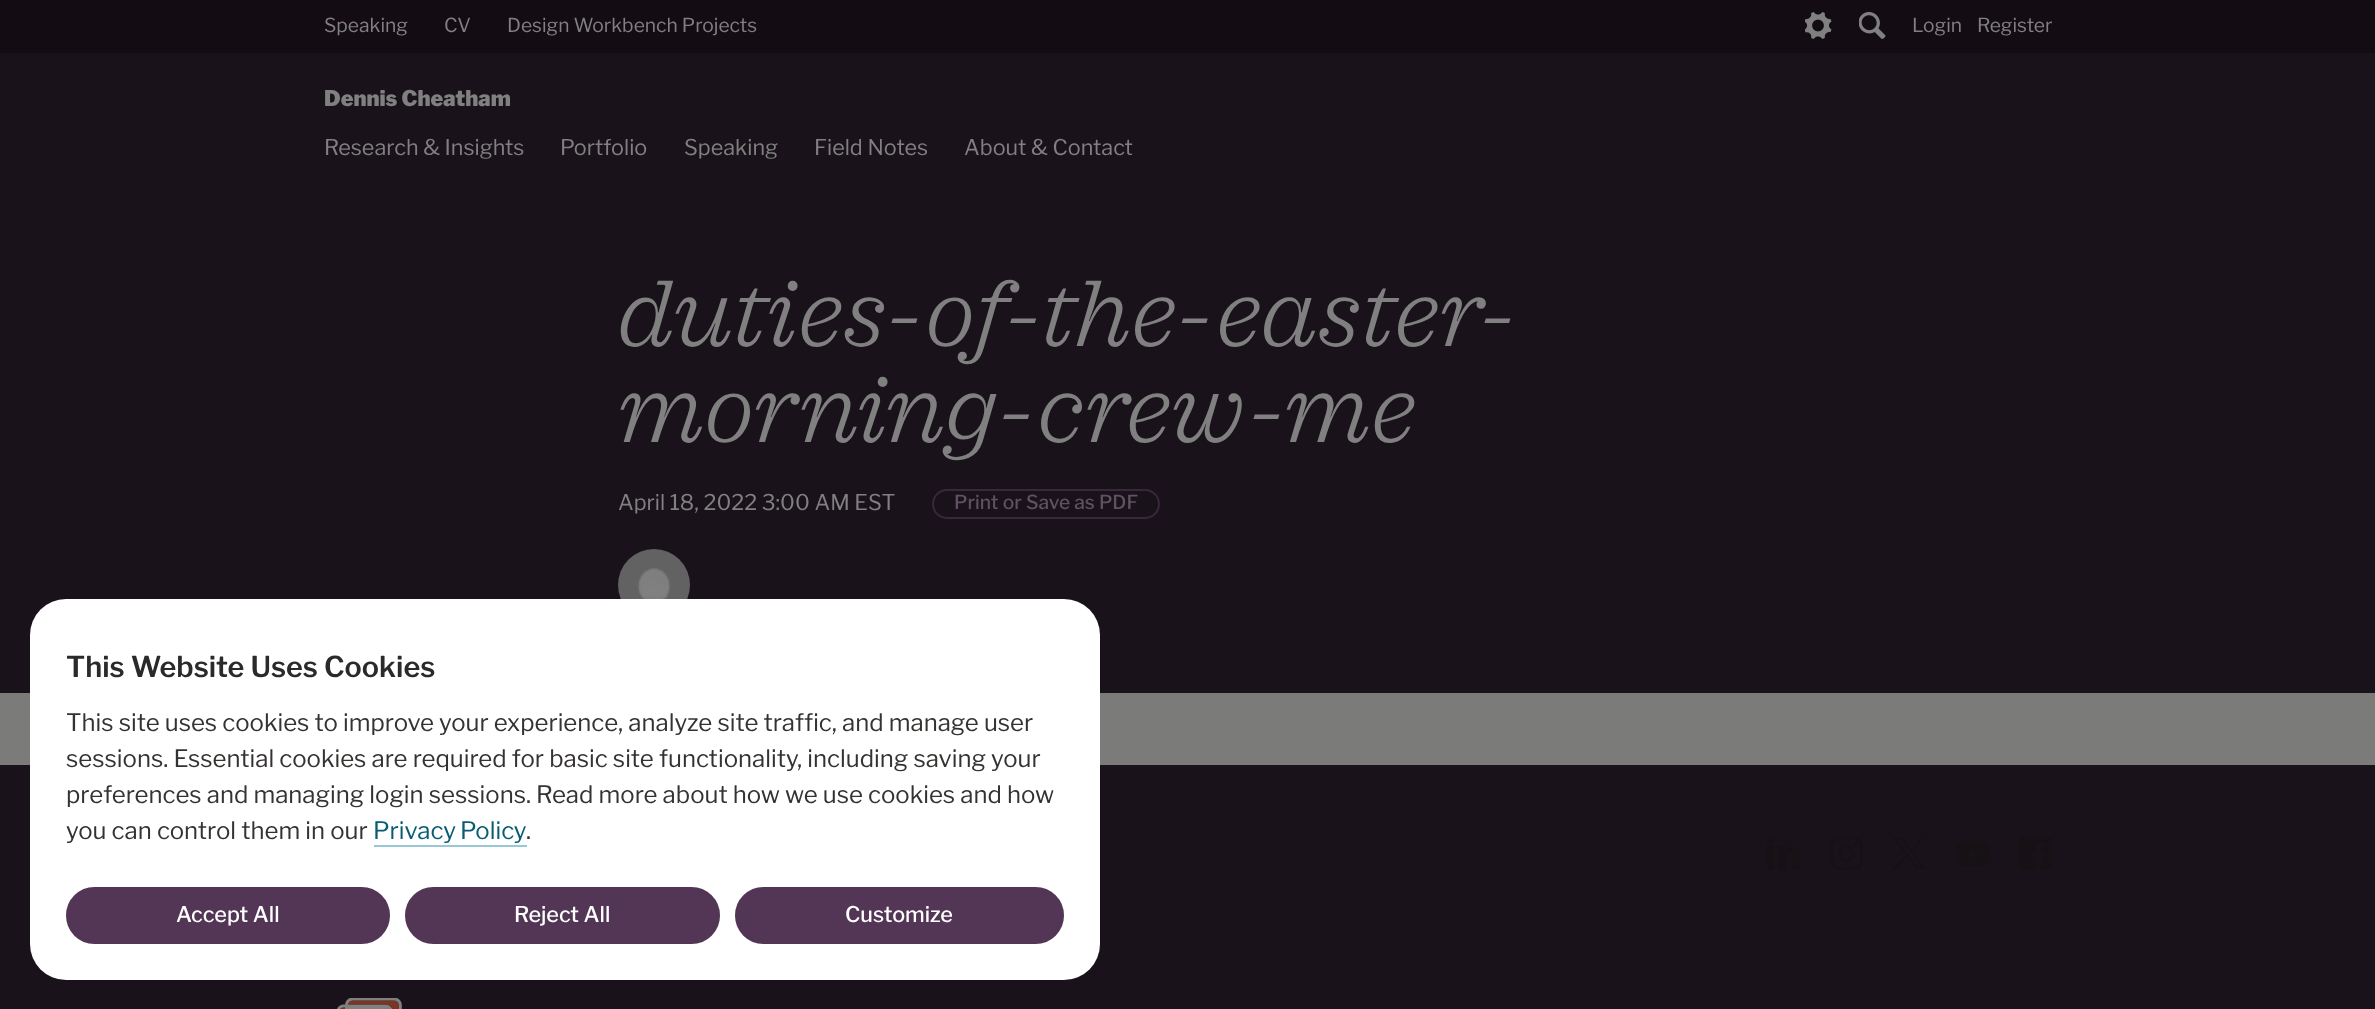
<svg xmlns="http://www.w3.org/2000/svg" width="2375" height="1009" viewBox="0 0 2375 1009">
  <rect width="100%" height="100%" fill="rgb(123,123,122)"/>
  <rect x="0" y="0" width="2375" height="53" fill="rgb(19,12,19)"/>
  <g font-family="Libre Franklin" font-size="19.25" fill="rgb(128,128,128)">
    <text x="324" y="32">Speaking</text>
    <text x="444" y="32">CV</text>
    <text x="507" y="32">Design Workbench Projects</text>
  </g>
  <image x="1805" y="12" width="27" height="27" href="pic1.png"/>
  <image x="1859" y="12" width="27" height="27" href="pic2.png"/>
  <g font-family="Libre Franklin" font-size="19.25" fill="rgb(128,128,128)">
    <text x="1912" y="32">Login</text>
    <text x="1977" y="32">Register</text>
  </g>
  <rect x="0" y="53" width="2375" height="640" fill="rgb(25,18,26)"/>
  <text x="324" y="106" font-family="Libre Franklin" font-size="21.6" font-weight="900" fill="rgb(128,128,128)">Dennis Cheatham</text>
  <g font-family="Libre Franklin" font-size="21.6" fill="rgb(128,128,128)">
    <text x="324" y="155">Research &amp; Insights</text>
    <text x="560" y="155">Portfolio</text>
    <text x="684" y="155">Speaking</text>
    <text x="814" y="155">Field Notes</text>
    <text x="964" y="155">About &amp; Contact</text>
  </g>
  <g font-family="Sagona" font-size="96" font-weight="300" font-style="italic" fill="rgb(128,128,128)">
    <text>
      <tspan x="618" y="346">duties-of-the-easter-</tspan>
      <tspan x="618" y="442">morning-crew-me</tspan>
    </text>
  </g>
  <text x="618" y="510" font-family="Libre Franklin" font-size="21.6" fill="rgb(128,128,128)">April 18, 2022 3:00 AM EST</text>
  <rect x="933" y="490" width="226" height="28" rx="14" fill="none" stroke="rgb(58,39,61)" stroke-width="2"/>
  <text x="954" y="509" font-family="Libre Franklin" font-size="19.25" font-weight="500" fill="rgb(96,81,98)">Print or Save as PDF</text>
  <image x="618" y="549" width="72" height="50" href="pic3.png"/>
  <rect x="0" y="765" width="2375" height="244" fill="rgb(25,18,26)"/>
  <image x="1767" y="837" width="33" height="33" href="pic4.png"/>
  <image x="1830" y="837" width="33" height="33" href="pic5.png"/>
  <image x="1893" y="838" width="33" height="31" href="pic6.png"/>
  <image x="1956" y="841" width="33" height="25" href="pic7.png"/>
  <image x="2019" y="837" width="33" height="33" href="pic8.png"/>
  <image x="336" y="998" width="66" height="11" href="pic9.png"/>
  <rect x="30" y="599" width="1070" height="381" rx="36" fill="rgb(255,255,255)"/>
  <text x="66" y="677" font-family="Libre Franklin" font-size="28.75" font-weight="600" fill="rgb(41,42,41)">This Website Uses Cookies</text>
  <g font-family="Libre Franklin" font-size="24" fill="rgb(53,51,49)">
    <text>
      <tspan x="66" y="731">This site uses cookies to improve your experience, analyze site traffic, and manage user</tspan>
      <tspan x="66" y="767">sessions. Essential cookies are required for basic site functionality, including saving your</tspan>
      <tspan x="66" y="803">preferences and managing login sessions. Read more about how we use cookies and how</tspan>
      <tspan x="66" y="839">you can control them in our</tspan>
    </text>
  </g>
  <text x="373" y="839" word-spacing="-1" font-family="Libre Franklin" font-size="24" fill="rgb(8,93,114)">Privacy Policy</text>
  <rect x="374" y="845" width="153" height="2" fill="rgb(152,200,211)"/>
  <text x="526" y="839" font-family="Libre Franklin" font-size="24" fill="rgb(53,51,49)">.</text>
  <rect x="67.5" y="888.5" width="321" height="54" rx="27" fill="rgb(83,53,85)" stroke="rgb(83,53,85)" stroke-width="3"/>
  <text x="176" y="922" font-family="Libre Franklin" font-size="21.6" font-weight="500" fill="rgb(255,255,255)">Accept All</text>
  <rect x="406.5" y="888.5" width="312" height="54" rx="27" fill="rgb(83,53,85)" stroke="rgb(83,53,85)" stroke-width="3"/>
  <text x="514" y="922" font-family="Libre Franklin" font-size="21.6" font-weight="500" fill="rgb(255,255,255)">Reject All</text>
  <rect x="736.5" y="888.5" width="326" height="54" rx="27" fill="rgb(83,53,85)" stroke="rgb(83,53,85)" stroke-width="3"/>
  <text x="845" y="922" font-family="Libre Franklin" font-size="21.6" font-weight="500" fill="rgb(255,255,255)">Customize</text>
</svg>
